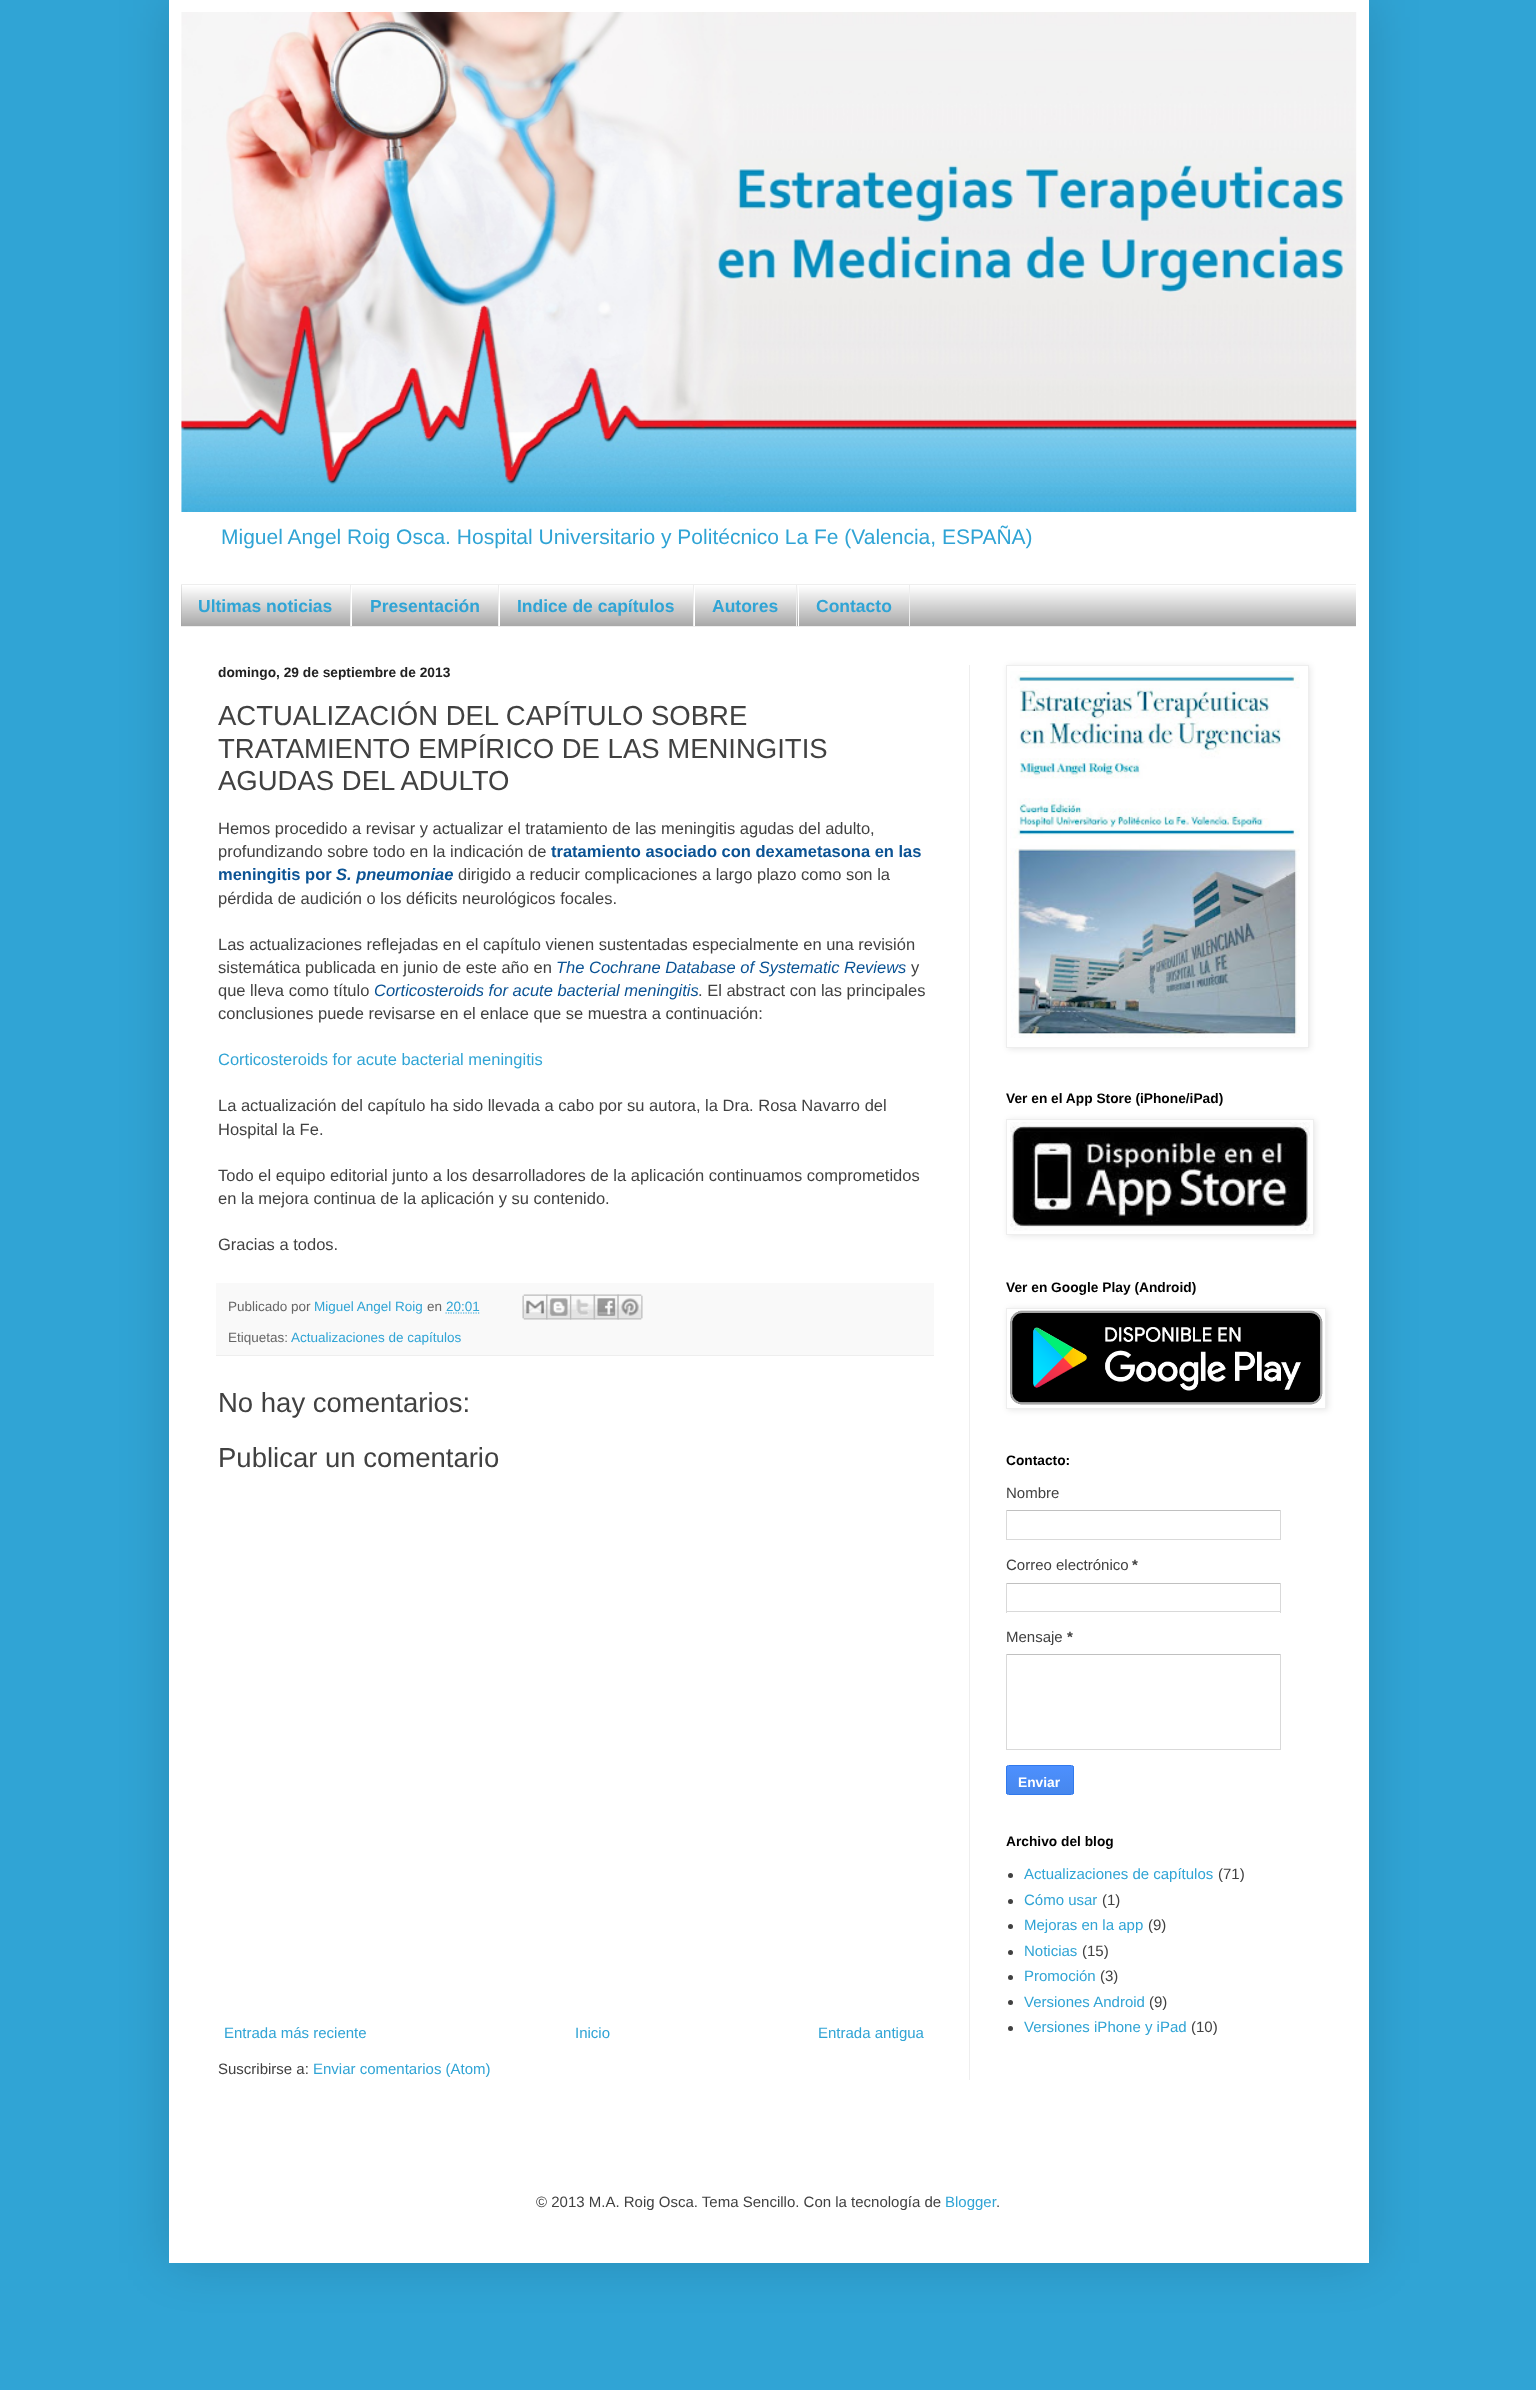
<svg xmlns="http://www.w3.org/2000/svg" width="1536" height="2390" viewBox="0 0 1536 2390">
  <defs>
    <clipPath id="clip1"><rect x="1006" y="1765" width="68" height="30" rx="2.5"/></clipPath>
    <linearGradient id="g1" gradientUnits="userSpaceOnUse" x1="1040" y1="1766" x2="1040" y2="1794"><stop offset="0" stop-color="rgb(77,144,254)"/><stop offset="1" stop-color="rgb(71,135,237)"/></linearGradient>
  </defs>
  <rect width="100%" height="100%" fill="rgb(48,164,213)"/>
  <rect x="169" y="0" width="1200" height="2263" fill="rgba(0,0,0,0.15)" filter="blur(25px)"/>
  <rect x="169" y="0" width="1200" height="2263" fill="rgb(255,255,255)"/>
  <image x="181" y="12" width="1176" height="500" href="pic1.png"/>
  <text x="221" y="544" font-family="Liberation Sans" font-size="21" fill="rgb(48,164,213)">Miguel Angel Roig Osca. Hospital Universitario y Politécnico La Fe (Valencia, ESPAÑA)</text>
  <rect x="181" y="585" width="1175" height="41" fill="rgb(153,153,153)"/>
  <image x="181" y="585" width="1175" height="41" href="pic2.png"/>
  <rect x="181" y="584" width="1175" height="1" fill="rgb(238,238,238)"/>
  <rect x="181" y="626" width="1175" height="1" fill="rgb(238,238,238)"/>
  <rect x="350" y="585" width="1" height="41" fill="rgb(238,238,238)"/>
  <text x="198" y="612" font-family="Liberation Sans" font-size="17.5" font-weight="bold" fill="rgb(48,164,213)">Ultimas noticias</text>
  <rect x="498" y="585" width="1" height="41" fill="rgb(238,238,238)"/>
  <rect x="351" y="585" width="1" height="41" fill="rgb(255,255,255)"/>
  <text x="370" y="612" font-family="Liberation Sans" font-size="17.5" font-weight="bold" fill="rgb(48,164,213)">Presentación</text>
  <rect x="693" y="585" width="1" height="41" fill="rgb(238,238,238)"/>
  <rect x="499" y="585" width="1" height="41" fill="rgb(255,255,255)"/>
  <text x="517" y="612" font-family="Liberation Sans" font-size="17.5" font-weight="bold" fill="rgb(48,164,213)">Indice de capítulos</text>
  <rect x="796" y="585" width="1" height="41" fill="rgb(238,238,238)"/>
  <rect x="694" y="585" width="1" height="41" fill="rgb(255,255,255)"/>
  <text x="712" y="612" font-family="Liberation Sans" font-size="17.5" font-weight="bold" fill="rgb(48,164,213)">Autores</text>
  <rect x="909" y="585" width="1" height="41" fill="rgb(238,238,238)"/>
  <rect x="798" y="585" width="1" height="41" fill="rgb(255,255,255)"/>
  <text x="816" y="612" font-family="Liberation Sans" font-size="17.5" font-weight="bold" fill="rgb(48,164,213)">Contacto</text>
  <rect x="969" y="665" width="1" height="1415" fill="rgb(238,238,238)"/>
  <text x="218" y="677" font-family="Liberation Sans" font-size="13.75" font-weight="bold" fill="rgb(34,34,34)">domingo, 29 de septiembre de 2013</text>
  <g font-family="Liberation Sans" font-size="27.5" fill="rgb(65,65,65)">
    <text>
      <tspan x="218" y="725">ACTUALIZACIÓN DEL CAPÍTULO SOBRE</tspan>
      <tspan x="218" y="758">TRATAMIENTO EMPÍRICO DE LAS MENINGITIS</tspan>
      <tspan x="218" y="790">AGUDAS DEL ADULTO</tspan>
    </text>
  </g>
  <g font-family="Liberation Sans" font-size="16.5" fill="rgb(65,65,65)">
    <text>
      <tspan x="218" y="834">Hemos procedido a revisar y actualizar el tratamiento de las meningitis agudas del adulto,</tspan>
      <tspan x="218" y="857">profundizando sobre todo en la indicación de</tspan>
    </text>
  </g>
  <g font-family="Liberation Sans" font-size="16.5" font-weight="bold" fill="rgb(11,83,148)">
    <text x="551" y="857">tratamiento asociado con dexametasona en las</text>
    <text x="218" y="880">meningitis por</text>
  </g>
  <text x="336" y="880" font-family="Liberation Sans" font-size="16.5" font-weight="bold" font-style="italic" fill="rgb(11,83,148)">S. pneumoniae</text>
  <g font-family="Liberation Sans" font-size="16.5" fill="rgb(65,65,65)">
    <text x="458" y="880">dirigido a reducir complicaciones a largo plazo como son la</text>
    <text x="218" y="904">pérdida de audición o los déficits neurológicos focales.</text>
    <text>
      <tspan x="218" y="950">Las actualizaciones reflejadas en el capítulo vienen sustentadas especialmente en una revisión</tspan>
      <tspan x="218" y="973">sistemática publicada en junio de este año en</tspan>
    </text>
  </g>
  <text x="556" y="973" font-family="Liberation Sans" font-size="16.5" font-style="italic" fill="rgb(11,83,148)">The Cochrane Database of Systematic Reviews</text>
  <g font-family="Liberation Sans" font-size="16.5" fill="rgb(65,65,65)">
    <text x="911" y="973">y</text>
    <text x="218" y="996">que lleva como título</text>
  </g>
  <text x="374" y="996" font-family="Liberation Sans" font-size="16.5" font-style="italic" fill="rgb(11,83,148)">Corticosteroids for acute bacterial meningitis</text>
  <g font-family="Liberation Sans" font-size="16.5" fill="rgb(65,65,65)">
    <text x="698" y="996">. El abstract con las principales</text>
    <text x="218" y="1019">conclusiones puede revisarse en el enlace que se muestra a continuación:</text>
  </g>
  <text x="218" y="1065" font-family="Liberation Sans" font-size="16.5" fill="rgb(48,164,213)">Corticosteroids for acute bacterial meningitis</text>
  <g font-family="Liberation Sans" font-size="16.5" fill="rgb(65,65,65)">
    <text>
      <tspan x="218" y="1111">La actualización del capítulo ha sido llevada a cabo por su autora, la Dra. Rosa Navarro del</tspan>
      <tspan x="218" y="1135">Hospital la Fe.</tspan>
    </text>
    <text>
      <tspan x="218" y="1181">Todo el equipo editorial junto a los desarrolladores de la aplicación continuamos comprometidos</tspan>
      <tspan x="218" y="1204">en la mejora continua de la aplicación y su contenido.</tspan>
    </text>
    <text x="218" y="1250">Gracias a todos.</text>
  </g>
  <rect x="216" y="1283" width="718" height="72" fill="rgb(249,249,249)"/>
  <rect x="216" y="1355" width="718" height="1" fill="rgb(238,238,238)"/>
  <text x="228" y="1311" font-family="Liberation Sans" font-size="13.5" fill="rgb(102,102,102)">Publicado por</text>
  <text x="314" y="1311" font-family="Liberation Sans" font-size="13.5" fill="rgb(48,164,213)">Miguel Angel Roig</text>
  <text x="427" y="1311" font-family="Liberation Sans" font-size="13.5" fill="rgb(102,102,102)">en</text>
  <text x="446" y="1311" font-family="Liberation Sans" font-size="13.5" fill="rgb(48,164,213)">20:01</text>
  <path d="M445.5 1313H479.5" fill="none" stroke="rgb(48,164,213)" stroke-width="1.2" stroke-dasharray="1.25 1.25"/>
  <image x="522" y="1294" width="26" height="26" href="pic3.png"/>
  <image x="546" y="1294" width="26" height="26" href="pic4.png"/>
  <image x="570" y="1294" width="25" height="26" href="pic5.png"/>
  <image x="593" y="1294" width="26" height="26" href="pic6.png"/>
  <image x="617" y="1294" width="26" height="26" href="pic7.png"/>
  <text x="228" y="1342" font-family="Liberation Sans" font-size="13.5" fill="rgb(102,102,102)">Etiquetas:</text>
  <text x="291" y="1342" font-family="Liberation Sans" font-size="13.5" fill="rgb(48,164,213)">Actualizaciones de capítulos</text>
  <g font-family="Liberation Sans" font-size="27.5" fill="rgb(65,65,65)">
    <text x="218" y="1412">No hay comentarios:</text>
    <text x="218" y="1467">Publicar un comentario</text>
  </g>
  <g font-family="Liberation Sans" font-size="15" fill="rgb(48,164,213)">
    <text x="224" y="2038">Entrada más reciente</text>
    <text x="575" y="2038">Inicio</text>
    <text x="818" y="2038">Entrada antigua</text>
  </g>
  <text x="218" y="2074" font-family="Liberation Sans" font-size="15" fill="rgb(65,65,65)">Suscribirse a:</text>
  <text x="313" y="2074" font-family="Liberation Sans" font-size="15" fill="rgb(48,164,213)">Enviar comentarios (Atom)</text>
  <rect x="1008" y="666" width="302" height="383" fill="rgba(0,0,0,0.1)" filter="blur(3px)"/>
  <rect x="1006.5" y="665.5" width="302" height="382" fill="rgb(255,255,255)" stroke="rgb(238,238,238)"/>
  <image x="1010" y="671" width="290" height="367" href="pic8.png"/>
  <text x="1006" y="1103" font-family="Liberation Sans" font-size="13.75" font-weight="bold" fill="rgb(0,0,0)">Ver en el App Store (iPhone/iPad)</text>
  <rect x="1008" y="1120" width="307" height="116" fill="rgba(0,0,0,0.1)" filter="blur(3px)"/>
  <rect x="1006.5" y="1119.5" width="307" height="115" fill="rgb(255,255,255)" stroke="rgb(238,238,238)"/>
  <image x="1010" y="1122" width="300" height="109" href="pic9.png"/>
  <text x="1006" y="1292" font-family="Liberation Sans" font-size="13.75" font-weight="bold" fill="rgb(0,0,0)">Ver en Google Play (Android)</text>
  <rect x="1008" y="1309" width="320" height="101" fill="rgba(0,0,0,0.1)" filter="blur(3px)"/>
  <rect x="1006.5" y="1308.5" width="319" height="100" fill="rgb(255,255,255)" stroke="rgb(238,238,238)"/>
  <image x="1010" y="1310" width="313" height="95" href="pic10.png"/>
  <text x="1006" y="1465" font-family="Liberation Sans" font-size="13.75" font-weight="bold" fill="rgb(0,0,0)">Contacto:</text>
  <text x="1006" y="1498" font-family="Liberation Sans" font-size="15" fill="rgb(65,65,65)">Nombre</text>
  <rect x="1006" y="1510" width="275" height="1" fill="rgb(192,192,192)"/>
  <rect x="1280" y="1510" width="1" height="30" fill="rgb(217,217,217)"/>
  <rect x="1006" y="1539" width="275" height="1" fill="rgb(217,217,217)"/>
  <rect x="1006" y="1510" width="1" height="30" fill="rgb(217,217,217)"/>
  <text x="1006" y="1570" font-family="Liberation Sans" font-size="15" fill="rgb(65,65,65)">Correo electrónico</text>
  <text x="1132" y="1570" font-family="Liberation Sans" font-size="15" font-weight="bold" fill="rgb(65,65,65)">*</text>
  <rect x="1006" y="1583" width="275" height="1" fill="rgb(192,192,192)"/>
  <rect x="1280" y="1583" width="1" height="30" fill="rgb(217,217,217)"/>
  <rect x="1006" y="1611" width="275" height="1" fill="rgb(217,217,217)"/>
  <rect x="1006" y="1583" width="1" height="30" fill="rgb(217,217,217)"/>
  <text x="1006" y="1642" font-family="Liberation Sans" font-size="15" fill="rgb(65,65,65)">Mensaje</text>
  <text x="1067" y="1642" font-family="Liberation Sans" font-size="15" font-weight="bold" fill="rgb(65,65,65)">*</text>
  <rect x="1006" y="1654" width="275" height="1" fill="rgb(192,192,192)"/>
  <rect x="1280" y="1654" width="1" height="96" fill="rgb(217,217,217)"/>
  <rect x="1006" y="1749" width="275" height="1" fill="rgb(217,217,217)"/>
  <rect x="1006" y="1654" width="1" height="96" fill="rgb(217,217,217)"/>
  <g clip-path="url(#clip1)">
    <rect x="1006" y="1766" width="68" height="28" fill="url(#g1)"/>
  </g>
  <rect x="1006.5" y="1765.5" width="67" height="29" rx="2" fill="none" stroke="rgb(48,121,237)"/>
  <text x="1018" y="1787" font-family="Liberation Sans" font-size="13.75" font-weight="bold" fill="rgb(255,255,255)">Enviar</text>
  <text x="1006" y="1846" font-family="Liberation Sans" font-size="13.75" font-weight="bold" fill="rgb(0,0,0)">Archivo del blog</text>
  <circle cx="1010.5" cy="1875.5" r="2.5" fill="rgb(65,65,65)"/>
  <text x="1024" y="1879" font-family="Liberation Sans" font-size="15" fill="rgb(48,164,213)">Actualizaciones de capítulos</text>
  <text x="1218" y="1879" font-family="Liberation Sans" font-size="15" fill="rgb(65,65,65)">(71)</text>
  <circle cx="1010.5" cy="1901.5" r="2.5" fill="rgb(65,65,65)"/>
  <text x="1024" y="1905" font-family="Liberation Sans" font-size="15" fill="rgb(48,164,213)">Cómo usar</text>
  <text x="1102" y="1905" font-family="Liberation Sans" font-size="15" fill="rgb(65,65,65)">(1)</text>
  <circle cx="1010.5" cy="1926.5" r="2.5" fill="rgb(65,65,65)"/>
  <text x="1024" y="1930" font-family="Liberation Sans" font-size="15" fill="rgb(48,164,213)">Mejoras en la app</text>
  <text x="1148" y="1930" font-family="Liberation Sans" font-size="15" fill="rgb(65,65,65)">(9)</text>
  <circle cx="1010.5" cy="1952.5" r="2.5" fill="rgb(65,65,65)"/>
  <text x="1024" y="1956" font-family="Liberation Sans" font-size="15" fill="rgb(48,164,213)">Noticias</text>
  <text x="1082" y="1956" font-family="Liberation Sans" font-size="15" fill="rgb(65,65,65)">(15)</text>
  <circle cx="1010.5" cy="1977.5" r="2.5" fill="rgb(65,65,65)"/>
  <text x="1024" y="1981" font-family="Liberation Sans" font-size="15" fill="rgb(48,164,213)">Promoción</text>
  <text x="1100" y="1981" font-family="Liberation Sans" font-size="15" fill="rgb(65,65,65)">(3)</text>
  <circle cx="1010.5" cy="2002.5" r="2.5" fill="rgb(65,65,65)"/>
  <text x="1024" y="2007" font-family="Liberation Sans" font-size="15" fill="rgb(48,164,213)">Versiones Android</text>
  <text x="1149" y="2007" font-family="Liberation Sans" font-size="15" fill="rgb(65,65,65)">(9)</text>
  <circle cx="1010.5" cy="2028.5" r="2.5" fill="rgb(65,65,65)"/>
  <text x="1024" y="2032" font-family="Liberation Sans" font-size="15" fill="rgb(48,164,213)">Versiones iPhone y iPad</text>
  <g font-family="Liberation Sans" font-size="15" fill="rgb(65,65,65)">
    <text x="1191" y="2032">(10)</text>
    <text x="536" y="2207">© 2013 M.A. Roig Osca. Tema Sencillo. Con la tecnología de</text>
  </g>
  <text x="945" y="2207" font-family="Liberation Sans" font-size="15" fill="rgb(48,164,213)">Blogger</text>
  <text x="996" y="2207" font-family="Liberation Sans" font-size="15" fill="rgb(65,65,65)">.</text>
</svg>
